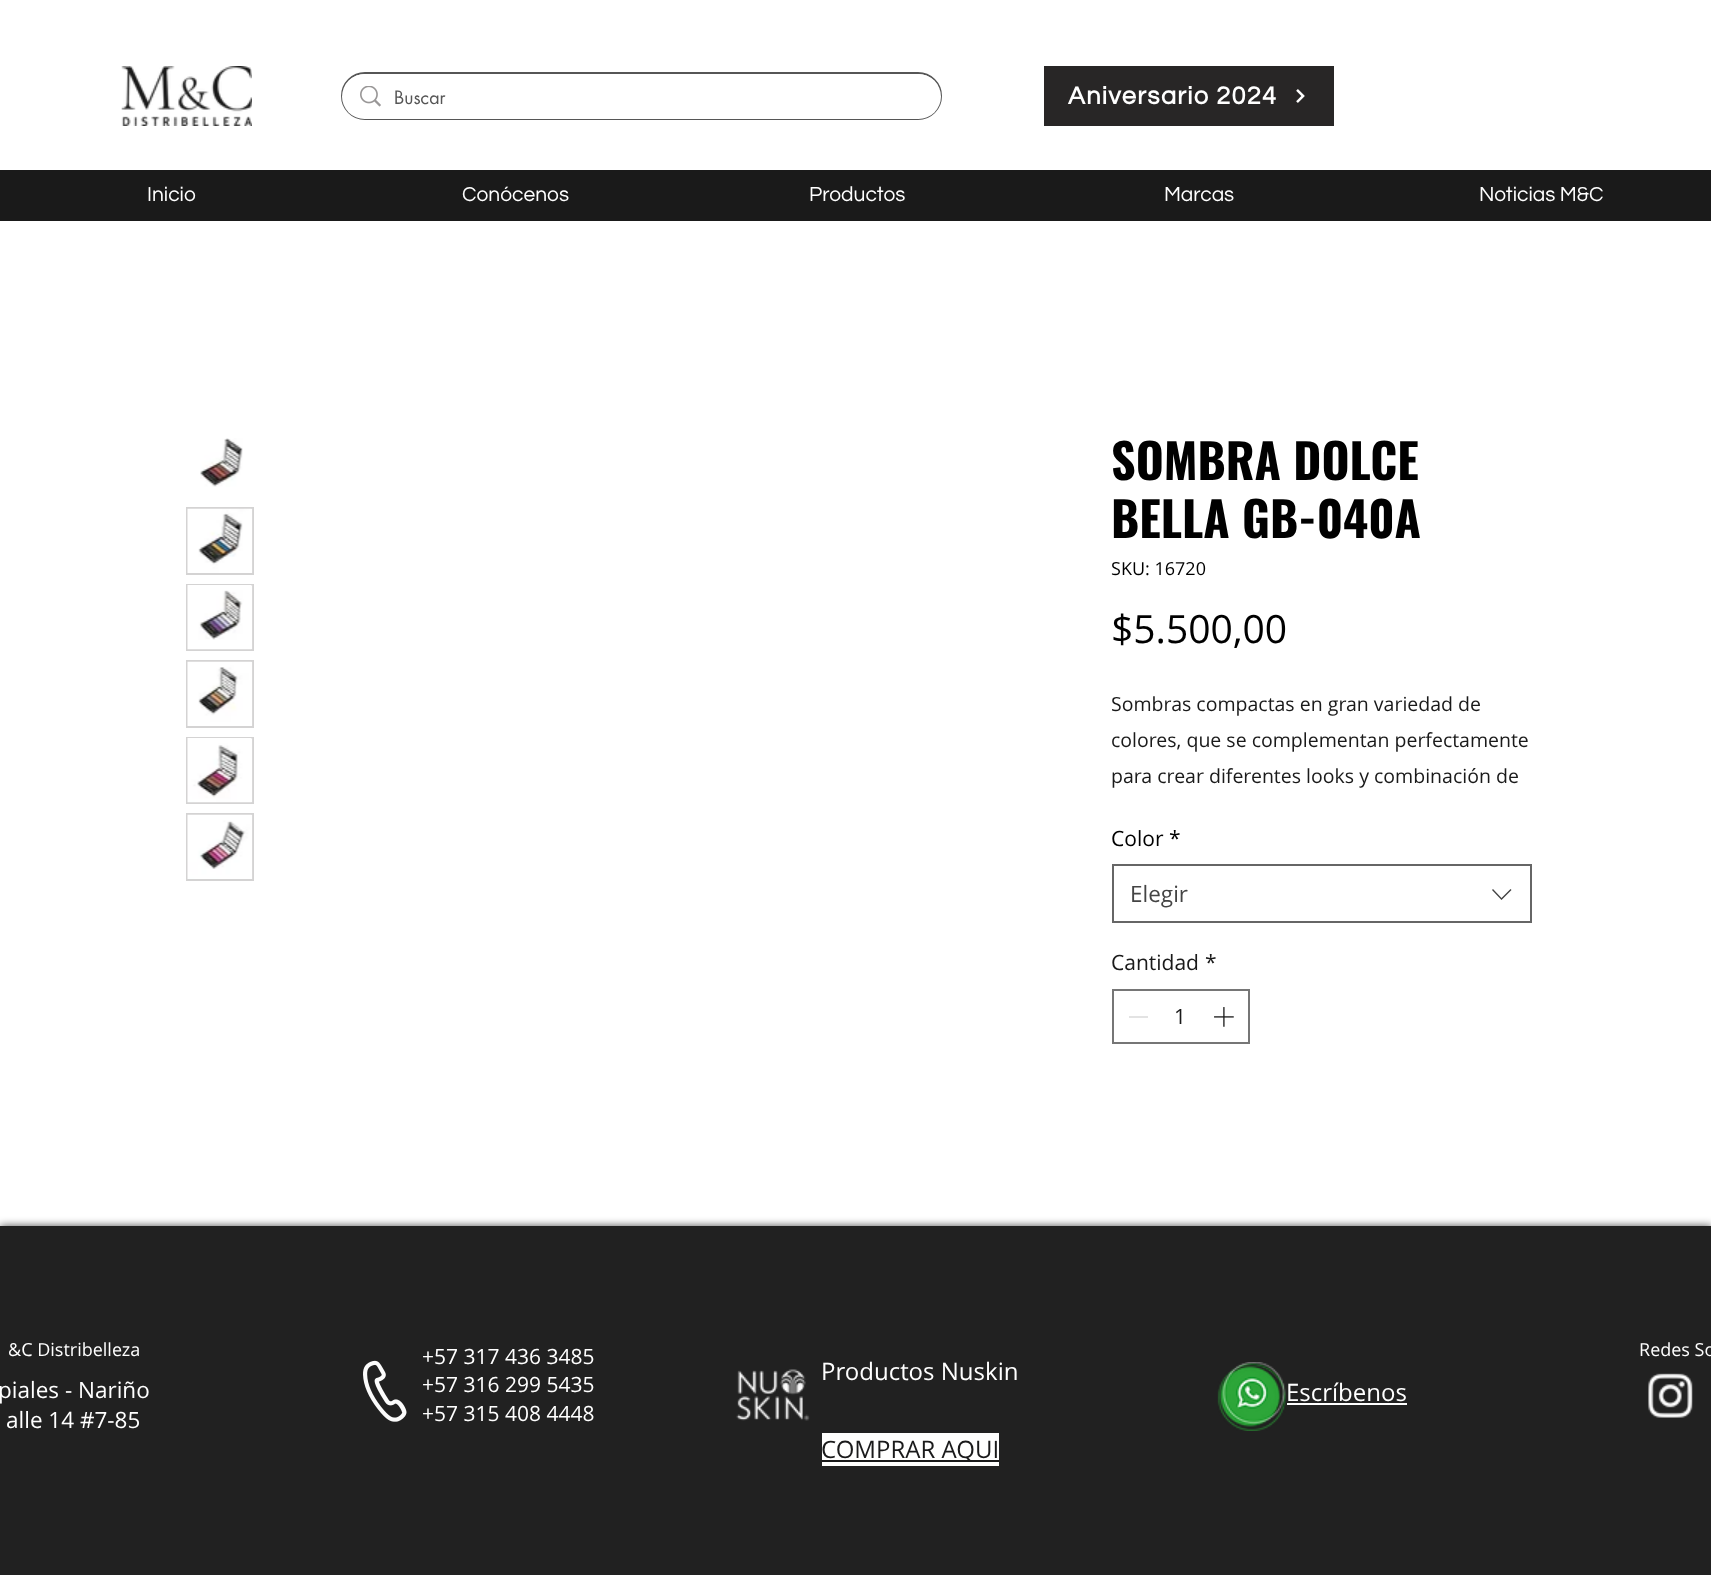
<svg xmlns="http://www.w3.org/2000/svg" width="1711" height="1575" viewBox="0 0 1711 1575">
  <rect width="100%" height="100%" fill="rgb(255,255,255)"/>
  <image x="121" y="66" width="131" height="60" href="pic1.png"/>
  <rect x="342" y="73" width="599" height="46" rx="23" fill="none" stroke="rgb(86,86,86)" stroke-width="2"/>
  <rect x="342" y="74" width="599" height="45" rx="22.5" fill="rgb(255,255,255)"/>
  <image x="360" y="86" width="21" height="21" href="pic2.png"/>
  <text x="394" y="104" font-family="futura" font-size="18" fill="rgb(86,86,86)">Buscar</text>
  <rect x="1044" y="66" width="290" height="60" fill="rgb(40,38,38)"/>
  <text x="1068" y="104" font-family="Questrial" font-size="25.5" font-weight="bold" letter-spacing="1.25" fill="rgb(255,255,255)">Aniversario 2024</text>
  <image x="1296" y="89" width="9" height="14" href="pic3.png"/>
  <rect x="0" y="170" width="1711" height="51" fill="rgb(26,26,26)"/>
  <g font-family="Questrial" font-size="21" fill="rgb(255,255,255)">
    <text x="147" y="201">Inicio</text>
    <text x="462" y="201">Conócenos</text>
    <text x="809" y="201">Productos</text>
    <text x="1164" y="201">Marcas</text>
    <text x="1479" y="201">Noticias M&amp;C</text>
  </g>
  <image x="200" y="438" width="43" height="49" href="pic4.png"/>
  <rect x="187" y="508" width="66" height="66" fill="none" stroke="rgb(212,211,211)" stroke-width="2"/>
  <image x="187" y="508" width="66" height="65" href="pic5.png"/>
  <rect x="187" y="585" width="66" height="65" fill="none" stroke="rgb(212,211,211)" stroke-width="2"/>
  <image x="187" y="585" width="66" height="65" href="pic6.png"/>
  <rect x="187" y="661" width="66" height="66" fill="none" stroke="rgb(212,211,211)" stroke-width="2"/>
  <image x="187" y="661" width="66" height="65" href="pic7.png"/>
  <rect x="187" y="738" width="66" height="65" fill="none" stroke="rgb(212,211,211)" stroke-width="2"/>
  <image x="187" y="738" width="66" height="65" href="pic8.png"/>
  <rect x="187" y="814" width="66" height="66" fill="none" stroke="rgb(212,211,211)" stroke-width="2"/>
  <image x="187" y="814" width="66" height="65" href="pic9.png"/>
  <g font-family="Oswald" font-size="48" font-weight="bold" fill="rgb(0,0,0)">
    <text>
      <tspan x="1111" y="480">SOMBRA DOLCE</tspan>
      <tspan x="1111" y="538">BELLA GB-040A</tspan>
    </text>
  </g>
  <text x="1111" y="575" font-family="Open Sans" font-size="18" fill="rgb(0,0,0)">SKU: 16720</text>
  <text x="1111" y="643" font-family="Open Sans" font-size="39" fill="rgb(0,0,0)">$5.500,00</text>
  <g font-family="Open Sans" font-size="19.5" fill="rgb(26,26,26)">
    <text>
      <tspan x="1111" y="711">Sombras compactas en gran variedad de</tspan>
      <tspan x="1111" y="747">colores, que se complementan perfectamente</tspan>
      <tspan x="1111" y="783">para crear diferentes looks y combinación de</tspan>
    </text>
  </g>
  <g font-family="Open Sans" font-size="21" fill="rgb(0,0,0)">
    <text x="1111" y="846">Color</text>
    <text x="1169" y="846">*</text>
  </g>
  <rect x="1113" y="865" width="418" height="57" fill="none" stroke="rgb(102,102,102)" stroke-width="2"/>
  <text x="1130" y="902" font-family="Open Sans" font-size="22.5" fill="rgb(68,68,68)">Elegir</text>
  <path d="M1510.5 889L1511.5 890L1501.5 900L1492 890L1493 889L1501.5 898Z" fill="rgb(68,68,68)" fill-rule="evenodd"/>
  <g font-family="Open Sans" font-size="21" fill="rgb(26,26,26)">
    <text x="1111" y="970">Cantidad</text>
    <text x="1205" y="970">*</text>
  </g>
  <rect x="1113" y="990" width="136" height="53" fill="none" stroke="rgb(118,118,118)" stroke-width="2"/>
  <rect x="1129" y="1016" width="19" height="2" fill="rgb(227,227,227)"/>
  <text x="1174" y="1024" font-family="Open Sans" font-size="21" fill="rgb(26,26,26)">1</text>
  <image x="1214" y="1007" width="20" height="20" href="pic10.png"/>
  <rect x="0" y="1226" width="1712" height="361" fill="rgba(0,0,0,0.7)" filter="blur(4px)"/>
  <rect x="0" y="1226" width="1711" height="349" fill="rgb(33,33,33)"/>
  <text x="8" y="1356" font-family="Open Sans" font-size="18" fill="rgb(255,255,255)">&amp;C Distribelleza</text>
  <image x="363" y="1360" width="44" height="62" href="pic11.png"/>
  <g font-family="Open Sans" font-size="21" fill="rgb(255,255,255)">
    <text>
      <tspan x="422" y="1364">+57 317 436 3485</tspan>
      <tspan x="422" y="1392">+57 316 299 5435</tspan>
      <tspan x="422" y="1421">+57 315 408 4448</tspan>
    </text>
  </g>
  <image x="736" y="1369" width="74" height="52" href="pic12.png"/>
  <text x="821" y="1380" font-family="Open Sans" font-size="24" fill="rgb(255,255,255)">Productos Nuskin</text>
  <image x="1217" y="1362" width="69" height="69" href="pic13.png"/>
  <text x="1639" y="1356" font-family="Open Sans" font-size="18" fill="rgb(255,255,255)">Redes So</text>
  <g font-family="Open Sans" font-size="22.5" fill="rgb(255,255,255)">
    <text x="-2" y="1398">piales - Nariño</text>
    <text x="6" y="1428">alle 14 #7-85</text>
  </g>
  <text x="1286" y="1401" font-family="Open Sans" font-size="24" fill="rgb(255,255,255)">Escríbenos</text>
  <rect x="1287" y="1403" width="120" height="2" fill="rgb(255,255,255)"/>
  <image x="1648" y="1373" width="45" height="45" href="pic14.png"/>
  <rect x="822" y="1433" width="177" height="33" fill="rgb(255,255,254)"/>
  <rect x="822" y="1460" width="177" height="2" fill="rgb(26,26,26)"/>
  <text x="821" y="1458" font-family="Open Sans" font-size="24" fill="rgb(26,26,26)">COMPRAR AQUI</text>
</svg>
